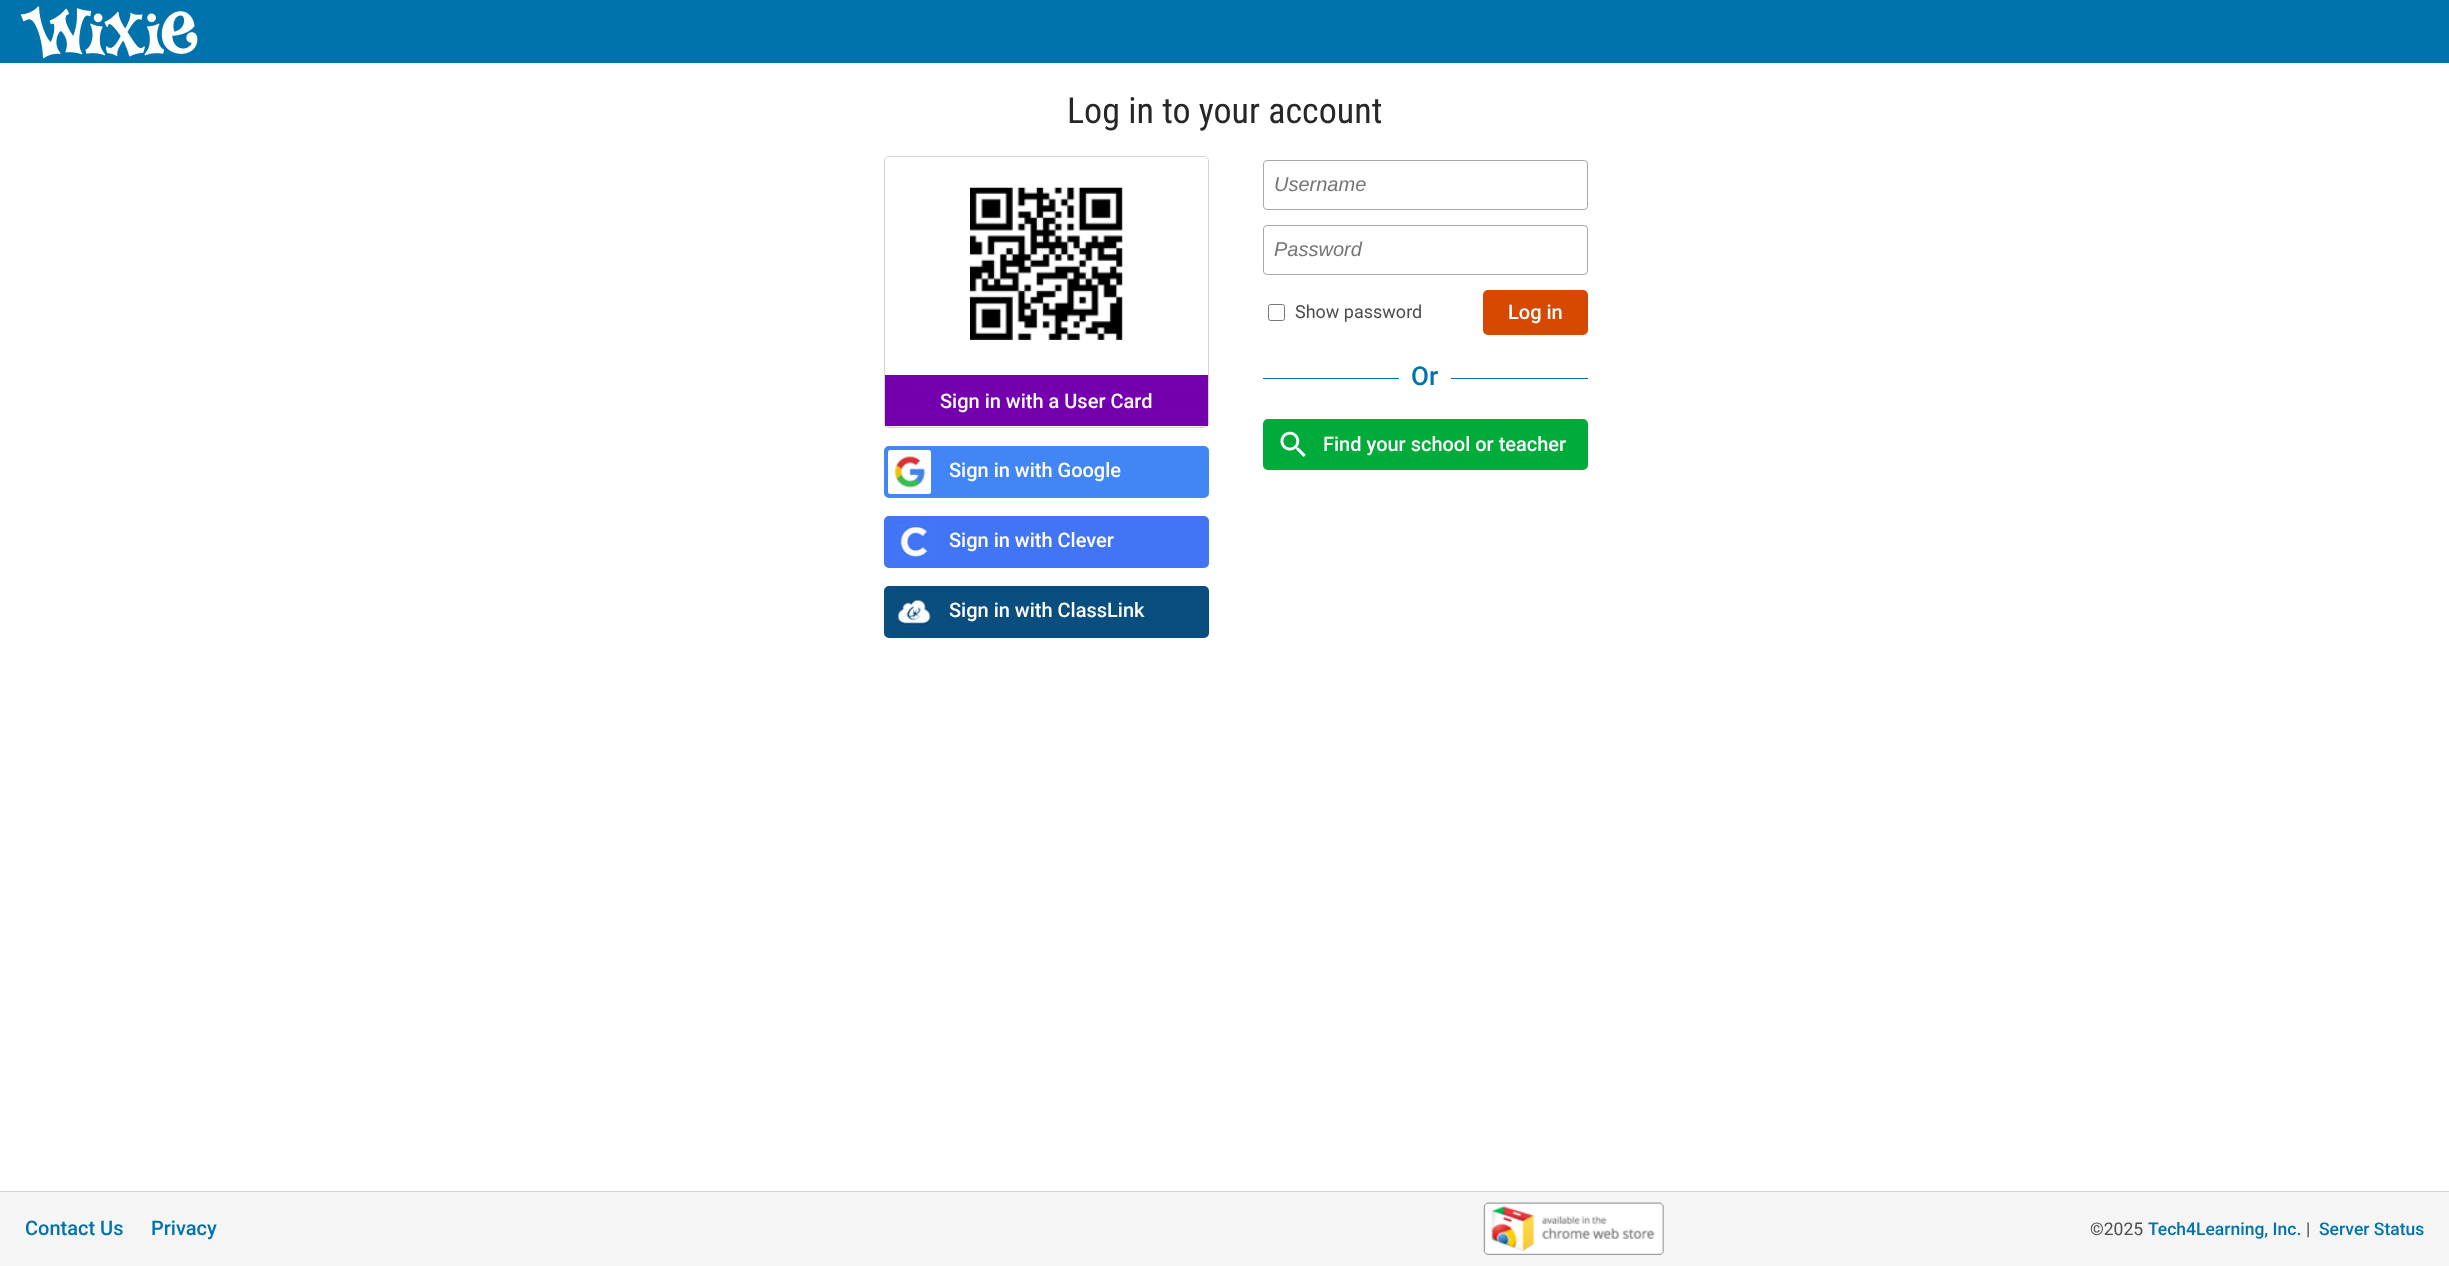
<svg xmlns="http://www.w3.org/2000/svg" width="2449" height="1266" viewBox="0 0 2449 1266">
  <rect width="100%" height="100%" fill="rgb(255,255,255)"/>
  <rect x="0" y="0" width="2449" height="63" fill="rgb(0,114,172)"/>
  <image x="20" y="6" width="178" height="53" href="pic1.png"/>
  <text x="1067" y="123" font-family="Roboto Condensed" font-size="36" fill="rgb(39,39,39)">Log in to your account</text>
  <rect x="1263.5" y="160.5" width="324" height="49" rx="3.5" fill="none" stroke="rgb(169,169,169)"/>
  <text x="1274" y="191" font-family="Liberation Sans" font-size="20" font-style="italic" fill="rgb(117,117,117)">Username</text>
  <rect x="1263.5" y="225.5" width="324" height="49" rx="3.5" fill="none" stroke="rgb(169,169,169)"/>
  <text x="1274" y="256" font-family="Liberation Sans" font-size="20" font-style="italic" fill="rgb(117,117,117)">Password</text>
  <rect x="1268.5" y="304.5" width="16" height="16" rx="2" fill="none" stroke="rgb(118,118,118)"/>
  <text x="1295" y="318" font-family="Roboto" font-size="18" fill="rgb(76,76,76)">Show password</text>
  <rect x="1483" y="290" width="105" height="45" rx="5" fill="rgb(215,72,0)"/>
  <text x="1508" y="319" font-family="Roboto" font-size="20" font-weight="500" fill="rgb(255,255,255)">Log in</text>
  <rect x="1263" y="378" width="136" height="1" fill="rgb(0,114,172)"/>
  <text x="1411" y="385" font-family="Roboto" font-size="26" font-weight="500" fill="rgb(0,114,172)">Or</text>
  <rect x="1451" y="378" width="137" height="1" fill="rgb(0,114,172)"/>
  <rect x="1265" y="421" width="321" height="47" rx="3" fill="rgb(0,172,57)" stroke="rgb(0,172,57)" stroke-width="4"/>
  <image x="1280" y="431" width="26" height="26" href="pic2.png"/>
  <text x="1323" y="451" font-family="Roboto" font-size="20" font-weight="500" fill="rgb(255,255,255)">Find your school or teacher</text>
  <rect x="884.5" y="156.5" width="324" height="271" rx="4.5" fill="none" stroke="rgb(211,211,211)"/>
  <image x="970" y="187" width="153" height="153" href="pic3.png"/>
  <rect x="885" y="375" width="323" height="51" fill="rgb(115,0,172)"/>
  <text x="940" y="408" font-family="Roboto" font-size="20" font-weight="500" fill="rgb(255,255,255)">Sign in with a User Card</text>
  <rect x="886" y="448" width="321" height="48" rx="3" fill="rgb(66,133,244)" stroke="rgb(66,133,244)" stroke-width="4"/>
  <rect x="888" y="450" width="43" height="44" rx="2.5" fill="rgb(255,255,255)"/>
  <image x="894" y="456" width="32" height="32" href="pic4.png"/>
  <text x="949" y="477" font-family="Roboto" font-size="20" font-weight="500" fill="rgb(255,255,255)">Sign in with Google</text>
  <rect x="886" y="518" width="321" height="48" rx="3" fill="rgb(66,116,246)" stroke="rgb(66,116,246)" stroke-width="4"/>
  <image x="898" y="525" width="33" height="34" href="pic5.png"/>
  <text x="949" y="547" font-family="Roboto" font-size="20" font-weight="500" fill="rgb(255,255,255)">Sign in with Clever</text>
  <rect x="886" y="588" width="321" height="48" rx="3" fill="rgb(10,77,127)" stroke="rgb(10,77,127)" stroke-width="4"/>
  <image x="898" y="600" width="33" height="25" href="pic6.png"/>
  <text x="949" y="617" font-family="Roboto" font-size="20" font-weight="500" fill="rgb(255,255,255)">Sign in with ClassLink</text>
  <rect x="0" y="1192" width="2449" height="74" fill="rgb(245,245,245)"/>
  <rect x="0" y="1191" width="2449" height="1" fill="rgb(211,211,211)"/>
  <g font-family="Roboto" font-size="20" font-weight="500" fill="rgb(0,114,172)">
    <text x="25" y="1235">Contact Us</text>
    <text x="151" y="1235">Privacy</text>
  </g>
  <image x="1483" y="1202" width="181" height="53" href="pic7.png"/>
  <text x="2090" y="1235" font-family="Roboto" font-size="17.5" fill="rgb(76,76,76)">©2025</text>
  <text x="2148" y="1235" font-family="Roboto" font-size="17.5" font-weight="500" fill="rgb(0,114,172)">Tech4Learning, Inc.</text>
  <text x="2306" y="1235" font-family="Roboto" font-size="17.5" fill="rgb(76,76,76)">|</text>
  <text x="2319" y="1235" font-family="Roboto" font-size="17.5" font-weight="500" fill="rgb(0,114,172)">Server Status</text>
</svg>
